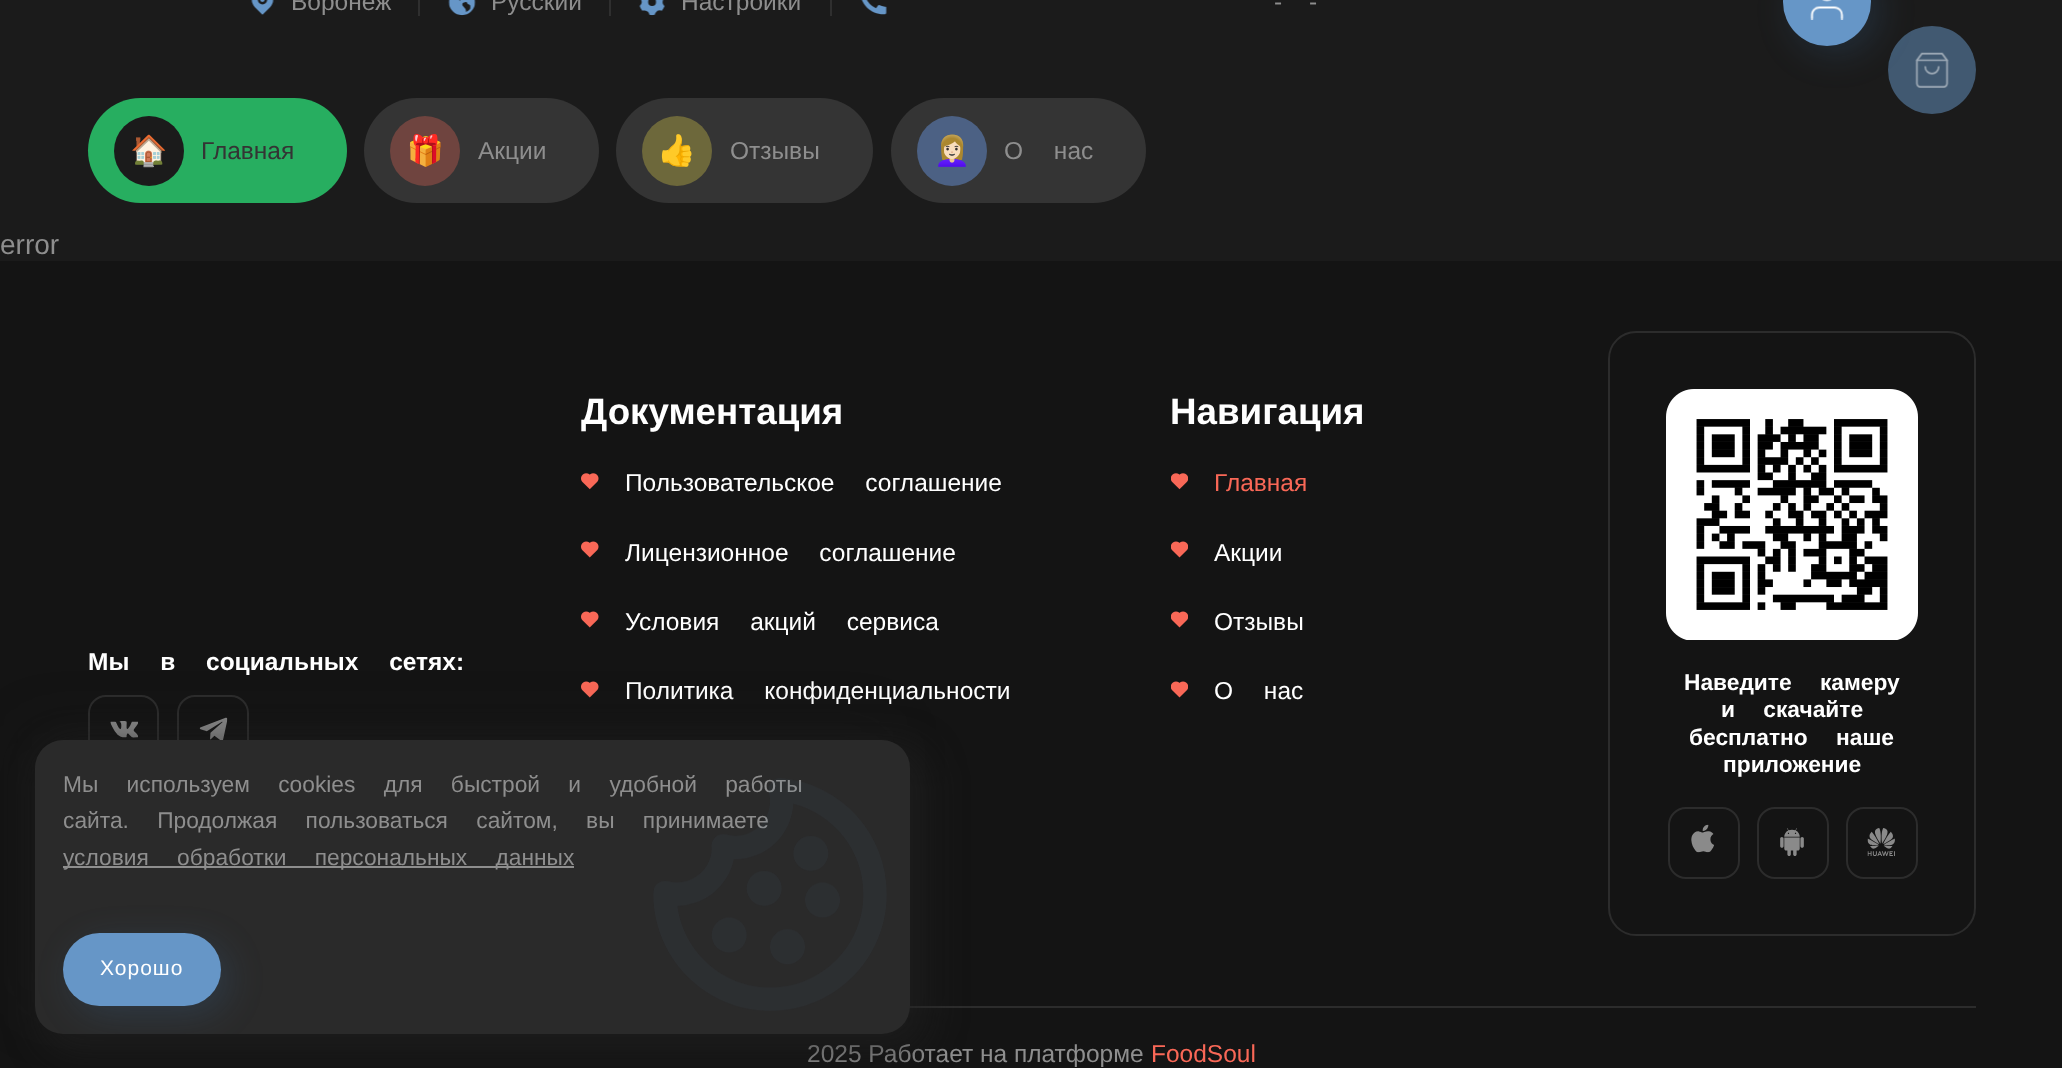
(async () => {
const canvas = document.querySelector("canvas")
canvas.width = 2062
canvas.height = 1068
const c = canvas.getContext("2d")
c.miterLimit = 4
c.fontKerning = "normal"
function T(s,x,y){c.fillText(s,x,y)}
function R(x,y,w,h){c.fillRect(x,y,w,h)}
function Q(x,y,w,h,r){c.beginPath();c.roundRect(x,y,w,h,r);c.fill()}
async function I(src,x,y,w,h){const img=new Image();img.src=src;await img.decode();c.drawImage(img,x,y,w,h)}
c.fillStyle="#1b1b1b"
R(0,0,2062,1068)
c.fillStyle="#2f2f2f"
R(418,0,2,16)
await I("1.png",251,0,23,15)
c.font="24.5px Liberation Sans"
c.fillStyle="#8e8e8e"
T("Воронеж",291,10)
c.fillStyle="#2f2f2f"
R(609,0,2,16)
await I("2.png",448,0,28,16)
c.fillStyle="#8e8e8e"
T("Русский",491,10)
c.fillStyle="#2f2f2f"
R(830,0,2,16)
await I("3.png",639,0,26,16)
c.fillStyle="#8e8e8e"
T("Настройки",681,10)
await I("4.png",861,0,26,15)
c.wordSpacing="116px"
T("-",1274,10)
T("-",1309,10)
c.fillStyle="#415971"
c.beginPath()
c.arc(1932,70,44,0,7)
c.fill()
await I("6.png",1915,52,34,36)
c.fillStyle="#4178b033"
c.filter="blur(17.5px)"
c.beginPath()
c.roundRect(1792,-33,88,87,43.5)
c.fill()
c.filter="none"
c.fillStyle="#6696c7"
c.beginPath()
c.arc(1827,2,44,0,7)
c.fill()
await I("5.png",1810,0,34,20)
c.fillStyle="#27ae60"
Q(88,98,259,105,52.5)
c.fillStyle="#1b1b1b"
c.beginPath()
c.arc(149,151,35,0,7)
c.fill()
await I("7.png",132,134,34,34)
c.wordSpacing="0px"
c.fillStyle="#343434"
T("Главная",201,159)
Q(364,98,235,105,52.5)
c.fillStyle="#6f443f"
c.beginPath()
c.arc(425,151,35,0,7)
c.fill()
await I("8.png",409,134,32,33)
c.fillStyle="#8e8e8e"
T("Акции",478,159)
c.fillStyle="#343434"
Q(616,98,257,105,52.5)
c.fillStyle="#6d683b"
c.beginPath()
c.arc(677,151,35,0,7)
c.fill()
await I("9.png",661,134,31,33)
c.fillStyle="#8e8e8e"
T("Отзывы",730,159)
c.fillStyle="#343434"
Q(891,98,255,105,52.5)
c.fillStyle="#4c6184"
c.beginPath()
c.arc(952,151,35,0,7)
c.fill()
await I("10.png",938,134,28,33)
c.wordSpacing="24px"
c.fillStyle="#8e8e8e"
T("О нас",1004,159)
c.wordSpacing="0px"
c.font="28px Liberation Sans"
T("error",0,254)
c.fillStyle="#141414"
R(0,261,2062,807)
c.wordSpacing="24px"
c.font="bold 24.5px Liberation Sans"
c.fillStyle="#fff"
T("Мы в социальных сетях:",88,670)
c.beginPath()
c.roundRect(89,696,69,70,17)
c.strokeStyle="#2c2c2c"
c.lineWidth=2
c.stroke()
await I("11.png",110,721,28,17)
c.beginPath()
c.roundRect(178,696,70,70,17)
c.stroke()
await I("12.png",199,717,29,23)
c.wordSpacing="0px"
c.font="bold 36.75px Liberation Sans"
T("Документация",581,424)
await I("13.png",581,473,18,17)
c.wordSpacing="24px"
c.font="24.5px Liberation Sans"
T("Пользовательское соглашение",625,491)
await I("14.png",581,541,18,17)
T("Лицензионное соглашение",625,561)
await I("14.png",581,611,18,17)
T("Условия акций сервиса",625,630)
await I("14.png",581,681,18,17)
T("Политика конфиденциальности",625,699)
c.wordSpacing="0px"
c.font="bold 36.75px Liberation Sans"
T("Навигация",1170,424)
await I("15.png",1171,473,17,17)
c.font="24.5px Liberation Sans"
c.fillStyle="#f96857"
T("Главная",1214,491)
await I("16.png",1171,541,17,17)
c.fillStyle="#fff"
T("Акции",1214,561)
await I("16.png",1171,611,17,17)
T("Отзывы",1214,630)
await I("16.png",1171,681,17,17)
c.wordSpacing="24px"
T("О нас",1214,699)
c.beginPath()
c.roundRect(1609,332,366,603,27)
c.stroke()
await I("17.png",1666,389,252,251)
c.wordSpacing="22px"
c.font="bold 22.75px Liberation Sans"
T("Наведите камеру",1684,690)
T("и скачайте",1721,717)
T("бесплатно наше",1689,745)
c.wordSpacing="0px"
T("приложение",1723,772)
c.beginPath()
c.roundRect(1669,808,70,70,17)
c.stroke()
await I("18.png",1691,824,23,29)
c.beginPath()
c.roundRect(1758,808,70,70,17)
c.stroke()
await I("19.png",1780,828,24,28)
c.beginPath()
c.roundRect(1847,808,70,70,17)
c.stroke()
await I("20.png",1867,828,28,28)
c.fillStyle="#2c2c2c"
R(909,1006,1067,2)
c.font="24.5px Liberation Sans"
c.fillStyle="#8e8e8e"
T("2025 Работает на платформе",807,1062)
c.fillStyle="#f96857"
T("FoodSoul",1151,1062)
c.fillStyle="#22222226"
c.filter="blur(26px)"
c.beginPath()
c.roundRect(18,723,875,294,28)
c.fill()
c.filter="none"
c.fillStyle="#22222280"
c.filter="blur(17.5px)"
c.beginPath()
c.roundRect(39,744,892,311,37)
c.fill()
c.filter="none"
c.fillStyle="#2a2a2a"
Q(35,740,875,294,28)
c.wordSpacing="22px"
c.font="22.75px Liberation Sans"
c.fillStyle="#8e8e8e"
T("Мы используем cookies для быстрой и удобной работы",63,792)
T("сайта. Продолжая пользоваться сайтом, вы принимаете",63,828)
R(63,866,511,2)
T("условия обработки персональных данных",63,865)
c.save()
c.beginPath()
c.roundRect(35,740,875,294,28)
c.clip()
c.fillStyle="#4178b033"
c.filter="blur(17.5px)"
c.beginPath()
c.roundRect(72,942,157,73,36.5)
c.fill()
c.filter="none"
c.restore()
c.fillStyle="#6696c7"
Q(63,933,158,73,36.5)
c.letterSpacing="1px"
c.wordSpacing="0px"
c.font="21px Liberation Sans"
c.fillStyle="#fff"
T("Хорошо",100,975)
await I("21.png",653,778,234,233)
})()
